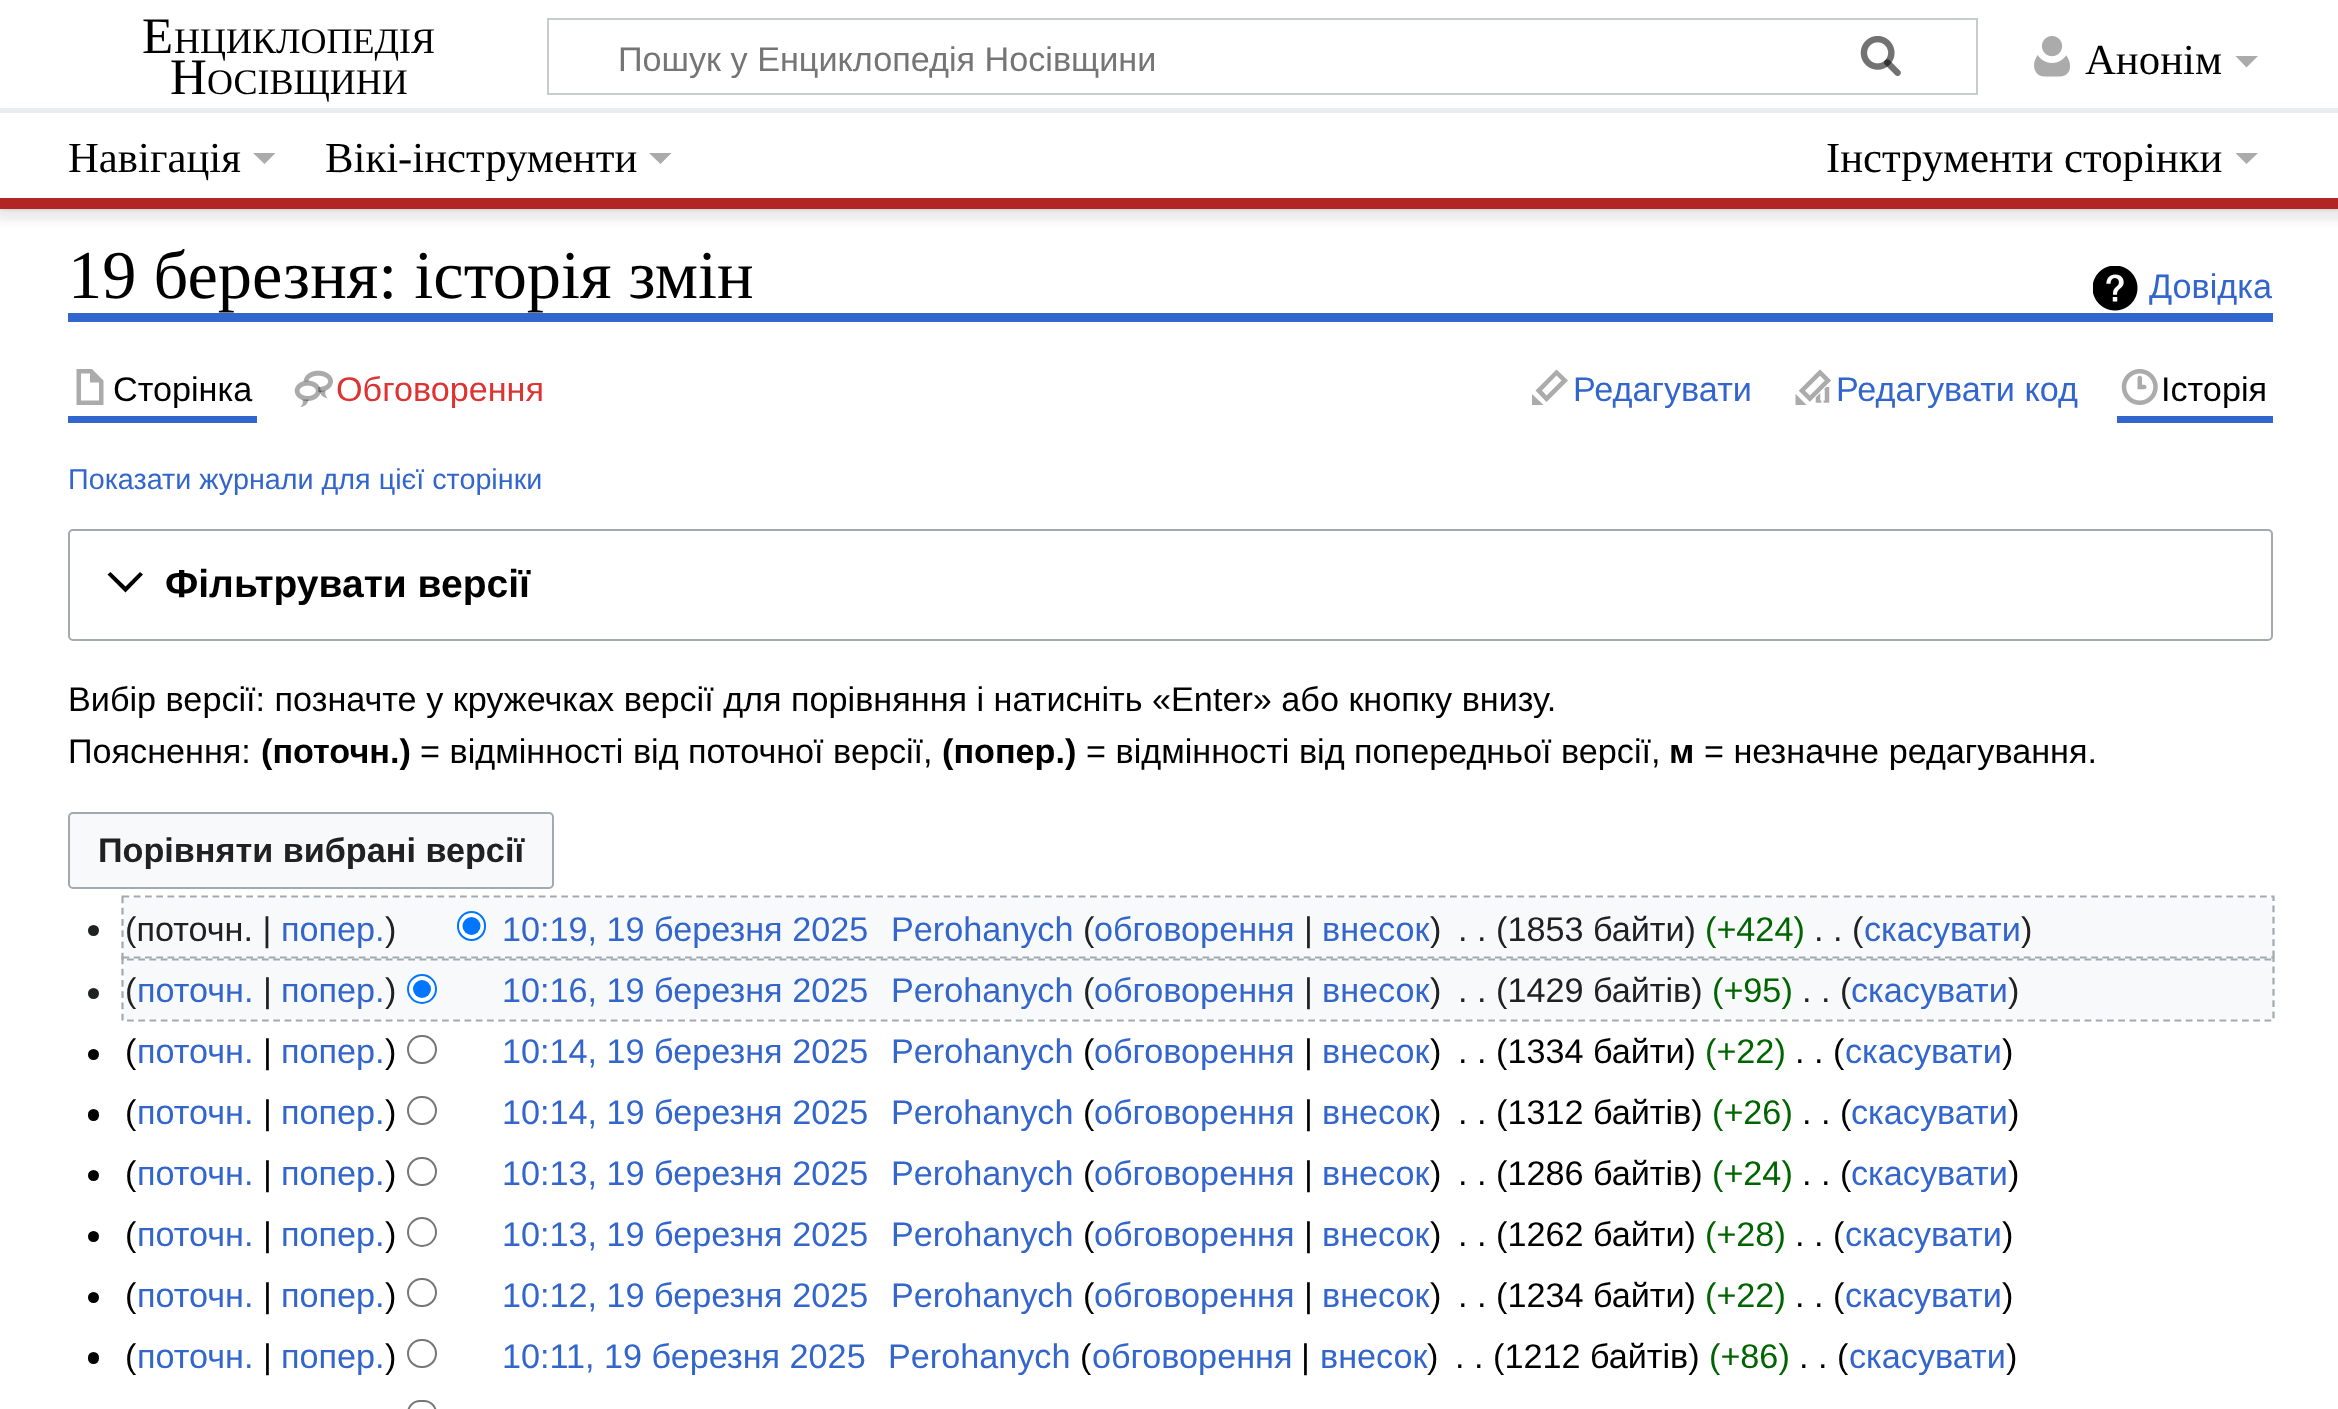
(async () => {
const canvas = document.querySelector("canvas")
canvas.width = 2338
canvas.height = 1409
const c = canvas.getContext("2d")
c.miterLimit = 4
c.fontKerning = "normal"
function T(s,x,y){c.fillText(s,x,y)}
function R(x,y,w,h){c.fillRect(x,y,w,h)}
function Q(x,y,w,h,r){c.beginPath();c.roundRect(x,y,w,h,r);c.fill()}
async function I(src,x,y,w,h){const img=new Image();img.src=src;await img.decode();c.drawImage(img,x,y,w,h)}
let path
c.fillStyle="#fff"
R(0,0,2338,1409)
c.fillStyle="#00000033"
c.filter="blur(2px)"
c.beginPath()
c.rect(0,108,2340,101)
c.fill()
c.filter="none"
c.fillStyle="#00000012"
c.filter="blur(3.5px)"
c.beginPath()
c.rect(-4,110,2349,111)
c.fill()
c.filter="none"
c.fillStyle="#fff"
R(0,104,2338,4)
c.font="51px Liberation Serif"
c.fillStyle="#000"
T("Е",142,53)
c.font="36px Liberation Serif"
T("НЦИКЛОПЕДІЯ",174,53)
c.font="51px Liberation Serif"
T("Н",170,94)
c.font="36px Liberation Serif"
T("ОСІВЩИНИ",207,94)
c.strokeStyle="#c8ccd1"
c.lineWidth=2
c.strokeRect(548,19,1429,75)
await I("1.png",1860,36,41,40)
c.font="34.2px Liberation Sans"
c.fillStyle="#757575"
T("Пошук у Енциклопедія Носівщини",618,71)
await I("2.png",1860,36,41,40)
await I("3.png",2034,36,36,41)
c.font="42.75px Liberation Serif"
c.fillStyle="#000"
T("Анонім",2085,74)
c.fillStyle="#ababab"
path = new Path2D("M2258 56l-11.5 11.5l-11-11.5z")
c.fill(path)
c.fillStyle="#fff"
R(0,113,2338,85)
c.fillStyle="#eaecf0"
R(0,108,2338,5)
c.fillStyle="#b32424"
R(0,198,2338,11)
c.fillStyle="#000"
T("Навігація",68,172)
c.fillStyle="#ababab"
path = new Path2D("M275.5 153l-11 11l-11.5-11z")
c.fill(path)
c.fillStyle="#000"
T("Вікі-інструменти",325,172)
c.fillStyle="#ababab"
path = new Path2D("M671.5 153l-11 11l-11.5-11z")
c.fill(path)
c.fillStyle="#000"
T("Інструменти сторінки",1826,172)
c.fillStyle="#ababab"
path = new Path2D("M2258 153l-11.5 11l-11-11z")
c.fill(path)
c.fillStyle="#36c"
R(68,313,2205,9)
c.font="68.4px Liberation Serif"
c.fillStyle="#000"
T("19 березня: історія змін",68,298)
await I("4.png",2093,266,45,45)
c.font="34.2px Liberation Sans"
c.fillStyle="#36c"
T("Довідка",2149,298)
R(68,416,189,7)
c.fillStyle="#ababab"
path = new Path2D("M76.5 369v36h27v-24.5l-11.5-11.5zm4.5 4.5h9v9h9v18h-18z")
c.fill(path)
c.fillStyle="#000"
T("Сторінка",113,401)
await I("5.png",294,370,39,38)
c.fillStyle="#d33"
T("Обговорення",336,401)
c.fillStyle="#ababab"
path = new Path2D("M1556.5 369.5l-21 21l11 11.5l21.5-21.5zm0 6l5 5l-15 15l-4.5-5zm-13 29.5h-11.5v-11z")
c.fill(path)
c.fillStyle="#36c"
T("Редагувати",1573,401)
await I("6.png",1795,369,36,36)
T("Редагувати код",1836,401)
R(2117,416,156,7)
await I("7.png",2121,369,37,36)
c.fillStyle="#000"
T("Історія",2161,401)
c.font="28.75px Liberation Sans"
c.fillStyle="#36c"
T("Показати журнали для цієї сторінки",68,489)
c.beginPath()
c.roundRect(69,530,2203,110,4)
c.strokeStyle="#a2a9b1"
c.stroke()
c.fillStyle="#000"
path = new Path2D("M140 572l-14.5 14.5l-15-14.5l-3 2.5l18 18l17.5-18z")
c.fill(path)
c.font="bold 39px Liberation Sans"
T("Фільтрувати версії",165,597)
c.font="34.2px Liberation Sans"
T("Вибір версії: позначте у кружечках версії для порівняння і натисніть «Enter» або кнопку внизу.",68,711)
T("Пояснення:",68,763)
c.font="bold 34.2px Liberation Sans"
T("(поточн.)",261,763)
c.font="34.2px Liberation Sans"
T("= відмінності від поточної версії,",420,763)
c.font="bold 34.2px Liberation Sans"
T("(попер.)",942,763)
c.font="34.2px Liberation Sans"
T("= відмінності від попередньої версії,",1086,763)
c.font="bold 34.2px Liberation Sans"
T("м",1669,763)
c.font="34.2px Liberation Sans"
T("= незначне редагування.",1704,763)
c.fillStyle="#f8f9fa"
c.beginPath()
c.roundRect(69,813,484,75,4)
c.fill()
c.stroke()
c.font="bold 34.2px Liberation Sans"
c.fillStyle="#202122"
T("Порівняти вибрані версії",98,862)
c.fillStyle="#f8f9fa"
R(124,898,2149,121)
c.font="34.2px Liberation Sans"
c.fillStyle="#202122"
T("(поточн. |",125,941)
c.fillStyle="#36c"
T("попер.",281,941)
c.fillStyle="#202122"
T(")",385,941)
c.fillStyle="#fff"
c.beginPath()
c.roundRect(458,912,27,28,13.5)
c.fill()
c.strokeStyle="#0075ff"
c.stroke()
c.fillStyle="#0075ff"
c.beginPath()
c.arc(471.5,926,9,0,7)
c.fill()
c.fillStyle="#36c"
T("10:19, 19 березня 2025",502,941)
T("Perohanych",891,941)
c.fillStyle="#202122"
T("(",1083,941)
c.fillStyle="#36c"
T("обговорення",1094,941)
c.fillStyle="#202122"
T("|",1304,941)
c.fillStyle="#36c"
T("внесок",1322,941)
c.fillStyle="#202122"
T(")",1430,941)
T(". . (1853 байти)",1458,941)
c.fillStyle="#006400"
T("(+424)",1705,941)
c.fillStyle="#202122"
T(". . (",1814,941)
c.fillStyle="#36c"
T("скасувати",1864,941)
c.fillStyle="#202122"
T(")",2021,941)
path = new Path2D("M122.5 896.5h2151v63h-2151z")
c.strokeStyle="#a2a9b1"
c.lineWidth=2.2
c.setLineDash([6.75,4.5])
c.stroke(path)
c.beginPath()
c.arc(93.5,930.5,5.5,0,7)
c.fill()
T("(",125,1002)
c.fillStyle="#36c"
T("поточн.",137,1002)
c.fillStyle="#202122"
T("|",263,1002)
c.fillStyle="#36c"
T("попер.",281,1002)
c.fillStyle="#202122"
T(")",385,1002)
c.fillStyle="#fff"
c.beginPath()
c.arc(422,989,14,0,7)
c.fill()
c.strokeStyle="#0075ff"
c.lineWidth=2
c.setLineDash([])
c.stroke()
c.fillStyle="#0075ff"
c.beginPath()
c.arc(422,989,9,0,7)
c.fill()
c.fillStyle="#36c"
T("10:16, 19 березня 2025",502,1002)
T("Perohanych",891,1002)
c.fillStyle="#202122"
T("(",1083,1002)
c.fillStyle="#36c"
T("обговорення",1094,1002)
c.fillStyle="#202122"
T("|",1304,1002)
c.fillStyle="#36c"
T("внесок",1322,1002)
c.fillStyle="#202122"
T(")",1430,1002)
T(". . (1429 байтів)",1458,1002)
c.fillStyle="#006400"
T("(+95)",1712,1002)
c.fillStyle="#202122"
T(". . (",1802,1002)
c.fillStyle="#36c"
T("скасувати",1851,1002)
c.fillStyle="#202122"
T(")",2008,1002)
path = new Path2D("M122.5 957.5h2151v63h-2151z")
c.strokeStyle="#a2a9b1"
c.lineWidth=2.2
c.setLineDash([6.75,4.5])
c.stroke(path)
c.beginPath()
c.arc(93.5,993.5,5.5,0,7)
c.fill()
c.fillStyle="#000"
c.beginPath()
c.arc(93.5,1054.5,5.5,0,7)
c.fill()
T("(",125,1063)
c.fillStyle="#36c"
T("поточн.",137,1063)
c.fillStyle="#000"
T("|",263,1063)
c.fillStyle="#36c"
T("попер.",281,1063)
c.fillStyle="#000"
T(")",385,1063)
c.beginPath()
c.roundRect(408,1036,28,27,13.5)
c.strokeStyle="#767676"
c.lineWidth=2
c.setLineDash([])
c.stroke()
c.fillStyle="#36c"
T("10:14, 19 березня 2025",502,1063)
T("Perohanych",891,1063)
c.fillStyle="#000"
T("(",1083,1063)
c.fillStyle="#36c"
T("обговорення",1094,1063)
c.fillStyle="#000"
T("|",1304,1063)
c.fillStyle="#36c"
T("внесок",1322,1063)
c.fillStyle="#000"
T(")",1430,1063)
T(". . (1334 байти)",1458,1063)
c.fillStyle="#006400"
T("(+22)",1705,1063)
c.fillStyle="#000"
T(". . (",1795,1063)
c.fillStyle="#36c"
T("скасувати",1845,1063)
c.fillStyle="#000"
T(")",2002,1063)
Q(88,1109,11,12,5.5)
T("(",125,1124)
c.fillStyle="#36c"
T("поточн.",137,1124)
c.fillStyle="#000"
T("|",263,1124)
c.fillStyle="#36c"
T("попер.",281,1124)
c.fillStyle="#000"
T(")",385,1124)
c.beginPath()
c.roundRect(408,1097,28,27,13.5)
c.stroke()
c.fillStyle="#36c"
T("10:14, 19 березня 2025",502,1124)
T("Perohanych",891,1124)
c.fillStyle="#000"
T("(",1083,1124)
c.fillStyle="#36c"
T("обговорення",1094,1124)
c.fillStyle="#000"
T("|",1304,1124)
c.fillStyle="#36c"
T("внесок",1322,1124)
c.fillStyle="#000"
T(")",1430,1124)
T(". . (1312 байтів)",1458,1124)
c.fillStyle="#006400"
T("(+26)",1712,1124)
c.fillStyle="#000"
T(". . (",1802,1124)
c.fillStyle="#36c"
T("скасувати",1851,1124)
c.fillStyle="#000"
T(")",2008,1124)
c.beginPath()
c.arc(93.5,1175.5,5.5,0,7)
c.fill()
T("(",125,1185)
c.fillStyle="#36c"
T("поточн.",137,1185)
c.fillStyle="#000"
T("|",263,1185)
c.fillStyle="#36c"
T("попер.",281,1185)
c.fillStyle="#000"
T(")",385,1185)
c.beginPath()
c.roundRect(408,1158,28,27,13.5)
c.stroke()
c.fillStyle="#36c"
T("10:13, 19 березня 2025",502,1185)
T("Perohanych",891,1185)
c.fillStyle="#000"
T("(",1083,1185)
c.fillStyle="#36c"
T("обговорення",1094,1185)
c.fillStyle="#000"
T("|",1304,1185)
c.fillStyle="#36c"
T("внесок",1322,1185)
c.fillStyle="#000"
T(")",1430,1185)
T(". . (1286 байтів)",1458,1185)
c.fillStyle="#006400"
T("(+24)",1712,1185)
c.fillStyle="#000"
T(". . (",1802,1185)
c.fillStyle="#36c"
T("скасувати",1851,1185)
c.fillStyle="#000"
T(")",2008,1185)
c.beginPath()
c.arc(93.5,1236.5,5.5,0,7)
c.fill()
T("(",125,1246)
c.fillStyle="#36c"
T("поточн.",137,1246)
c.fillStyle="#000"
T("|",263,1246)
c.fillStyle="#36c"
T("попер.",281,1246)
c.fillStyle="#000"
T(")",385,1246)
c.beginPath()
c.arc(422,1232,14,0,7)
c.stroke()
c.fillStyle="#36c"
T("10:13, 19 березня 2025",502,1246)
T("Perohanych",891,1246)
c.fillStyle="#000"
T("(",1083,1246)
c.fillStyle="#36c"
T("обговорення",1094,1246)
c.fillStyle="#000"
T("|",1304,1246)
c.fillStyle="#36c"
T("внесок",1322,1246)
c.fillStyle="#000"
T(")",1430,1246)
T(". . (1262 байти)",1458,1246)
c.fillStyle="#006400"
T("(+28)",1705,1246)
c.fillStyle="#000"
T(". . (",1795,1246)
c.fillStyle="#36c"
T("скасувати",1845,1246)
c.fillStyle="#000"
T(")",2002,1246)
c.beginPath()
c.arc(93.5,1297.5,5.5,0,7)
c.fill()
T("(",125,1307)
c.fillStyle="#36c"
T("поточн.",137,1307)
c.fillStyle="#000"
T("|",263,1307)
c.fillStyle="#36c"
T("попер.",281,1307)
c.fillStyle="#000"
T(")",385,1307)
c.beginPath()
c.roundRect(408,1279,28,27,13.5)
c.stroke()
c.fillStyle="#36c"
T("10:12, 19 березня 2025",502,1307)
T("Perohanych",891,1307)
c.fillStyle="#000"
T("(",1083,1307)
c.fillStyle="#36c"
T("обговорення",1094,1307)
c.fillStyle="#000"
T("|",1304,1307)
c.fillStyle="#36c"
T("внесок",1322,1307)
c.fillStyle="#000"
T(")",1430,1307)
T(". . (1234 байти)",1458,1307)
c.fillStyle="#006400"
T("(+22)",1705,1307)
c.fillStyle="#000"
T(". . (",1795,1307)
c.fillStyle="#36c"
T("скасувати",1845,1307)
c.fillStyle="#000"
T(")",2002,1307)
Q(88,1352,11,12,5.5)
T("(",125,1368)
c.fillStyle="#36c"
T("поточн.",137,1368)
c.fillStyle="#000"
T("|",263,1368)
c.fillStyle="#36c"
T("попер.",281,1368)
c.fillStyle="#000"
T(")",385,1368)
c.beginPath()
c.roundRect(408,1340,28,27,13.5)
c.stroke()
c.fillStyle="#36c"
T("10:11, 19 березня 2025",502,1368)
T("Perohanych",888,1368)
c.fillStyle="#000"
T("(",1080,1368)
c.fillStyle="#36c"
T("обговорення",1092,1368)
c.fillStyle="#000"
T("|",1301,1368)
c.fillStyle="#36c"
T("внесок",1320,1368)
c.fillStyle="#000"
T(")",1427,1368)
T(". . (1212 байтів)",1455,1368)
c.fillStyle="#006400"
T("(+86)",1709,1368)
c.fillStyle="#000"
T(". . (",1799,1368)
c.fillStyle="#36c"
T("скасувати",1849,1368)
c.fillStyle="#000"
T(")",2006,1368)
c.beginPath()
c.roundRect(408,1401,28,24,13.5)
c.stroke()
})()
